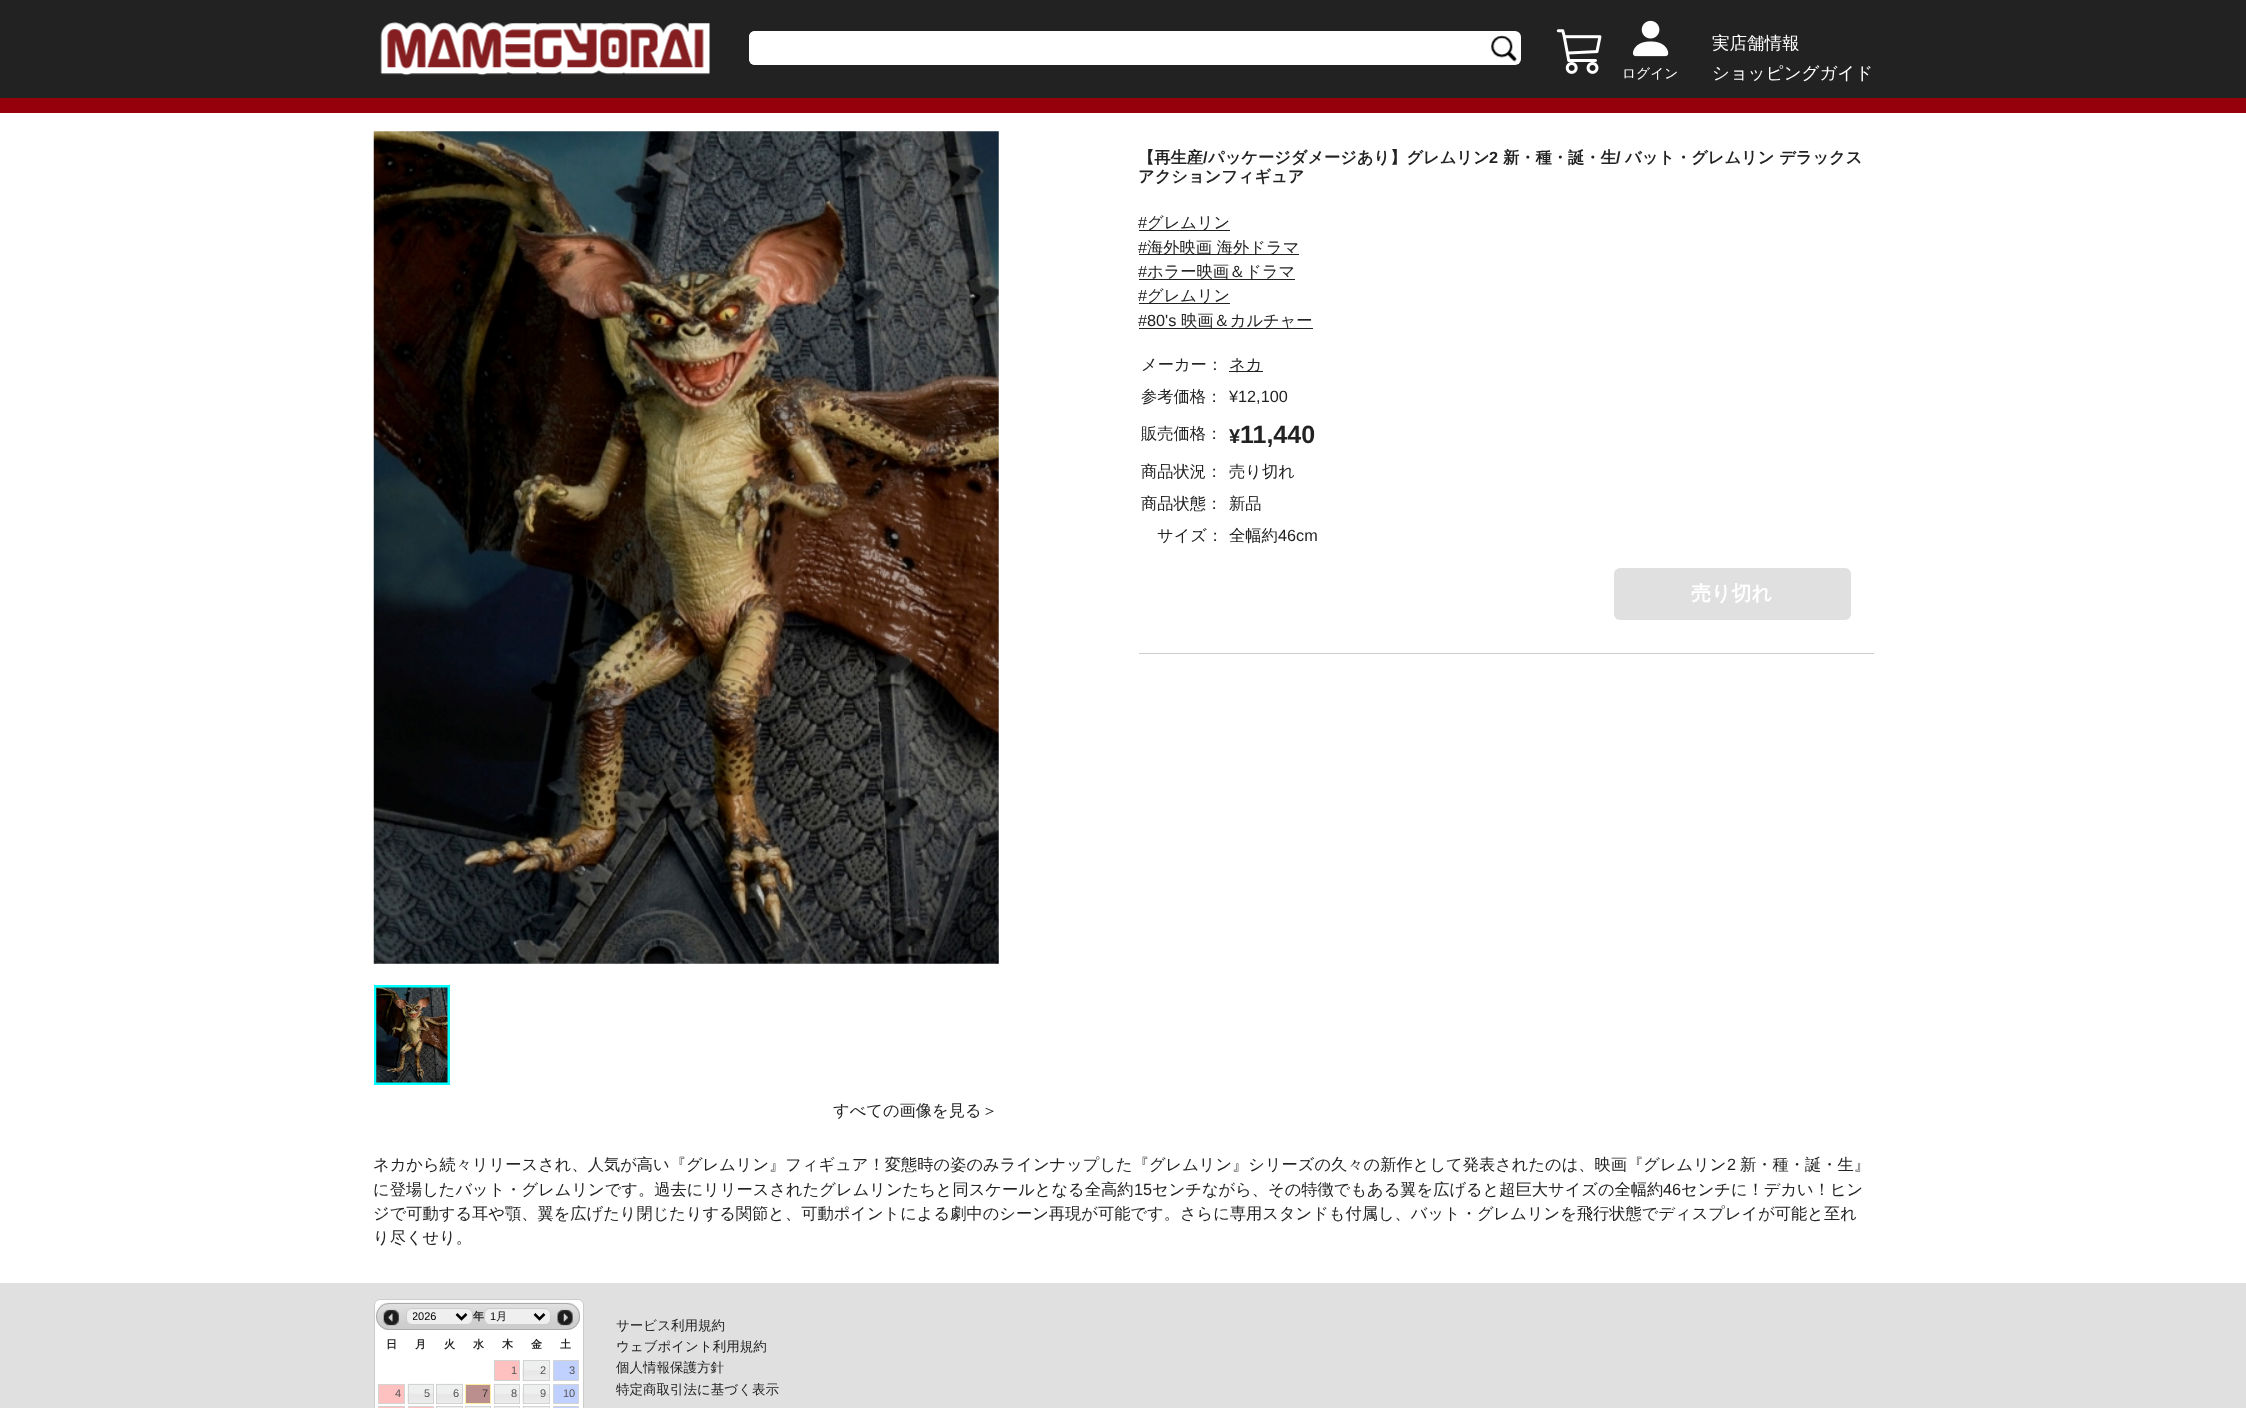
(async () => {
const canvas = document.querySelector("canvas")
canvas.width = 2246
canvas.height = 1408
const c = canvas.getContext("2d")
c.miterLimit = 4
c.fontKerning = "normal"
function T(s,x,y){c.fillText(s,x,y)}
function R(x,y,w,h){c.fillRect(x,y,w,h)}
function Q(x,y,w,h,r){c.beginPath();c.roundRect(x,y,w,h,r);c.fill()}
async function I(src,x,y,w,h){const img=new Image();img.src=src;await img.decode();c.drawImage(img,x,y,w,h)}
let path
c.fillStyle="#fff"
R(0,0,2246,1408)
c.fillStyle="#222"
R(0,0,2246,98)
c.fillStyle="#96000b"
R(0,98,2246,15)
await I("1.png",380,22,330,54)
c.fillStyle="#fff"
Q(749,31,772,34,6)
Q(749,31,734,34,6)
await I("2.png",1491,35,26,27)
await I("3.png",1556,29,46,45)
await I("4.png",1632,20,37,37)
c.font="500 13.75px WenQuanYi Zen Hei"
T("ログイン",1622,78)
c.font="500 17.5px WenQuanYi Zen Hei"
T("実店舗情報",1712,49)
T("ショッピングガイド",1712,79)
c.font="bold 16.25px WenQuanYi Zen Hei"
c.fillStyle="#222"
T("【再生産",1138,163)
c.font="bold 16.25px Liberation Sans"
T("/",1203,163)
c.font="bold 16.25px WenQuanYi Zen Hei"
T("パッケージダメージあり】グレムリン",1208,163)
c.font="bold 16.25px Liberation Sans"
T("2",1489,163)
c.font="bold 16.25px WenQuanYi Zen Hei"
T("新・種・誕・生",1503,163)
c.font="bold 16.25px Liberation Sans"
T("/",1616,163)
c.font="bold 16.25px WenQuanYi Zen Hei"
T("バット・グレムリン デラックス",1625,163)
T("アクションフィギュア",1138,182)
c.font="16.25px Liberation Sans"
T("#",1138,228)
R(1139,230,91,1)
c.font="500 16.25px WenQuanYi Zen Hei"
T("グレムリン",1147,228)
c.font="16.25px Liberation Sans"
T("#",1138,253)
R(1139,254,160,1)
c.font="500 16.25px WenQuanYi Zen Hei"
T("海外映画 海外ドラマ",1147,253)
c.font="16.25px Liberation Sans"
T("#",1138,277)
R(1139,279,156,1)
c.font="500 16.25px WenQuanYi Zen Hei"
T("ホラー映画＆ドラマ",1147,277)
c.font="16.25px Liberation Sans"
T("#",1138,301)
R(1139,303,91,1)
c.font="500 16.25px WenQuanYi Zen Hei"
T("グレムリン",1147,301)
c.font="16.25px Liberation Sans"
T("#80's",1138,326)
R(1139,328,174,1)
c.font="500 16.25px WenQuanYi Zen Hei"
T("映画＆カルチャー",1181,326)
T("メーカー：",1141,370)
R(1229,371,34,1)
T("ネカ",1229,370)
T("参考価格：",1141,402)
c.font="16.25px Liberation Sans"
T("¥12,100",1229,402)
c.font="500 16.25px WenQuanYi Zen Hei"
T("販売価格：",1141,439)
c.font="bold 20px Liberation Sans"
T("¥",1229,443)
c.font="bold 25px Liberation Sans"
T("11,440",1240,443)
c.font="500 16.25px WenQuanYi Zen Hei"
T("商品状況：",1141,477)
T("売り切れ",1229,477)
T("商品状態：",1141,509)
T("新品",1229,509)
T("サイズ：",1157,541)
T("全幅約",1229,541)
c.font="16.25px Liberation Sans"
T("46cm",1278,541)
c.fillStyle="#e0e0e0"
Q(1614,568,237,52,6)
c.font="bold 20px WenQuanYi Zen Hei"
c.fillStyle="#fff"
T("売り切れ",1691,600)
c.fillStyle="#ccc"
R(1139,653,735,1)
await I("5.png",373,131,626,833)
c.strokeStyle="#0ff"
c.lineWidth=3
c.strokeRect(375.5,986.5,73,97)
await I("6.png",376,987,72,96)
c.font="500 16.25px WenQuanYi Zen Hei"
c.fillStyle="#222"
T("すべての画像を見る＞",833,1116)
T("ネカから続々リリースされ、人気が高い『グレムリン』フィギュア！変態時の姿のみラインナップした『グレムリン』シリーズの久々の新作として発表されたのは、映画『グレムリン",373,1170)
c.font="16.25px Liberation Sans"
T("2",1727,1170)
c.font="500 16.25px WenQuanYi Zen Hei"
T("新・種・誕・生』",1740,1170)
T("に登場したバット・グレムリンです。過去にリリースされたグレムリンたちと同スケールとなる全高約",373,1195)
c.font="16.25px Liberation Sans"
T("15",1134,1195)
c.font="500 16.25px WenQuanYi Zen Hei"
T("センチながら、その特徴でもある翼を広げると超巨大サイズの全幅約",1152,1195)
c.font="16.25px Liberation Sans"
T("46",1663,1195)
c.font="500 16.25px WenQuanYi Zen Hei"
T("センチに！デカい！ヒン",1681,1195)
T("ジで可動する耳や顎、翼を広げたり閉じたりする関節と、可動ポイントによる劇中のシーン再現が可能です。さらに専用スタンドも付属し、バット・グレムリンを飛行状態でディスプレイが可能と至れ",373,1219)
T("り尽くせり。",373,1243)
c.fillStyle="#e0e0e0"
R(0,1283,2246,125)
c.fillStyle="#fff"
c.beginPath()
c.roundRect(374.5,1299.5,209,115,5.5)
c.fill()
c.strokeStyle="#ccc"
c.lineWidth=1
c.stroke()
await I("7.png",376,1302,204,28)
c.beginPath()
c.roundRect(376.5,1303.5,203,26,12.5)
c.strokeStyle="#aaa"
c.stroke()
await I("8.png",383,1309,16,17)
c.fillStyle="#efefef"
c.beginPath()
c.roundRect(406.5,1308.5,66,16,5.5)
c.fill()
c.strokeStyle="#ccc"
c.stroke()
path = new Path2D("M456.5 1314l5 5l5-5")
c.strokeStyle="#000"
c.lineWidth=2.5
c.stroke(path)
c.save()
c.beginPath()
c.rect(413,1309,38,15)
c.clip()
c.font="11px Liberation Sans"
c.fillStyle="#000"
T("2026",412,1320)
c.restore()
c.font="bold 11px WenQuanYi Zen Hei"
c.fillStyle="#222"
T("年",473,1320)
c.fillStyle="#efefef"
c.beginPath()
c.roundRect(484.5,1308.5,66,16,5.5)
c.fill()
c.strokeStyle="#ccc"
c.lineWidth=1
c.stroke()
path = new Path2D("M534.5 1314l5 5l5-5")
c.strokeStyle="#000"
c.lineWidth=2.5
c.stroke(path)
c.font="11px Liberation Sans"
c.fillStyle="#000"
T("1",490,1320)
c.font="500 11px WenQuanYi Zen Hei"
T("月",496,1320)
await I("9.png",557,1309,16,17)
c.font="bold 11px WenQuanYi Zen Hei"
c.fillStyle="#222"
T("日",386,1348)
T("月",415,1348)
T("火",444,1348)
T("水",473,1348)
T("木",502,1348)
T("金",531,1348)
T("土",560,1348)
c.fillStyle="#ffc0c0"
c.beginPath()
c.rect(494.5,1360.5,25,20)
c.fill()
c.strokeStyle="#d3d3d3"
c.lineWidth=1
c.stroke()
c.font="11px Liberation Sans"
c.fillStyle="#555"
T("1",511,1374)
await I("10.png",522,1360,28,22)
c.strokeRect(523.5,1360.5,26,20)
T("2",540,1374)
c.fillStyle="#c0d0ff"
c.beginPath()
c.rect(553.5,1360.5,25,20)
c.fill()
c.stroke()
c.fillStyle="#555"
T("3",569,1374)
c.fillStyle="#ffc0c0"
c.beginPath()
c.rect(378.5,1384.5,26,19)
c.fill()
c.stroke()
c.fillStyle="#555"
T("4",395,1397)
await I("11.png",407,1383,27,21)
c.strokeRect(408.5,1384.5,25,19)
T("5",424,1397)
await I("12.png",436,1383,27,20)
c.strokeRect(436.5,1384.5,26,19)
T("6",453,1397)
c.fillStyle="#bc8f8f"
c.beginPath()
c.rect(465.5,1384.5,25,19)
c.fill()
c.strokeStyle="#fcefa1"
c.stroke()
c.fillStyle="#363636"
T("7",482,1397)
await I("13.png",493,1383,27,21)
c.strokeStyle="#d3d3d3"
c.strokeRect(494.5,1384.5,25,19)
c.fillStyle="#555"
T("8",511,1397)
await I("14.png",522,1383,28,21)
c.strokeRect(523.5,1384.5,26,19)
T("9",540,1397)
c.fillStyle="#c0d0ff"
c.beginPath()
c.rect(553.5,1384.5,25,19)
c.fill()
c.stroke()
c.fillStyle="#555"
T("10",563,1397)
c.fillStyle="#ffc0c0"
c.beginPath()
c.rect(378.5,1406.5,26,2)
c.fill()
c.stroke()
c.beginPath()
c.rect(408.5,1406.5,25,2)
c.fill()
c.stroke()
await I("15.png",437,1407,25,1)
c.strokeRect(436.5,1406.5,26,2)
await I("16.png",466,1406,26,2)
c.strokeRect(465.5,1406.5,25,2)
await I("17.png",493,1406,26,2)
c.strokeRect(494.5,1406.5,25,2)
await I("18.png",522,1406,27,2)
c.strokeRect(523.5,1406.5,26,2)
c.fillStyle="#c0d0ff"
c.beginPath()
c.rect(553.5,1406.5,25,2)
c.fill()
c.stroke()
c.font="500 13.5px WenQuanYi Zen Hei"
c.fillStyle="#222"
T("サービス利用規約",616,1330)
T("ウェブポイント利用規約",616,1351)
T("個人情報保護方針",616,1372)
T("特定商取引法に基づく表示",616,1394)
})()
